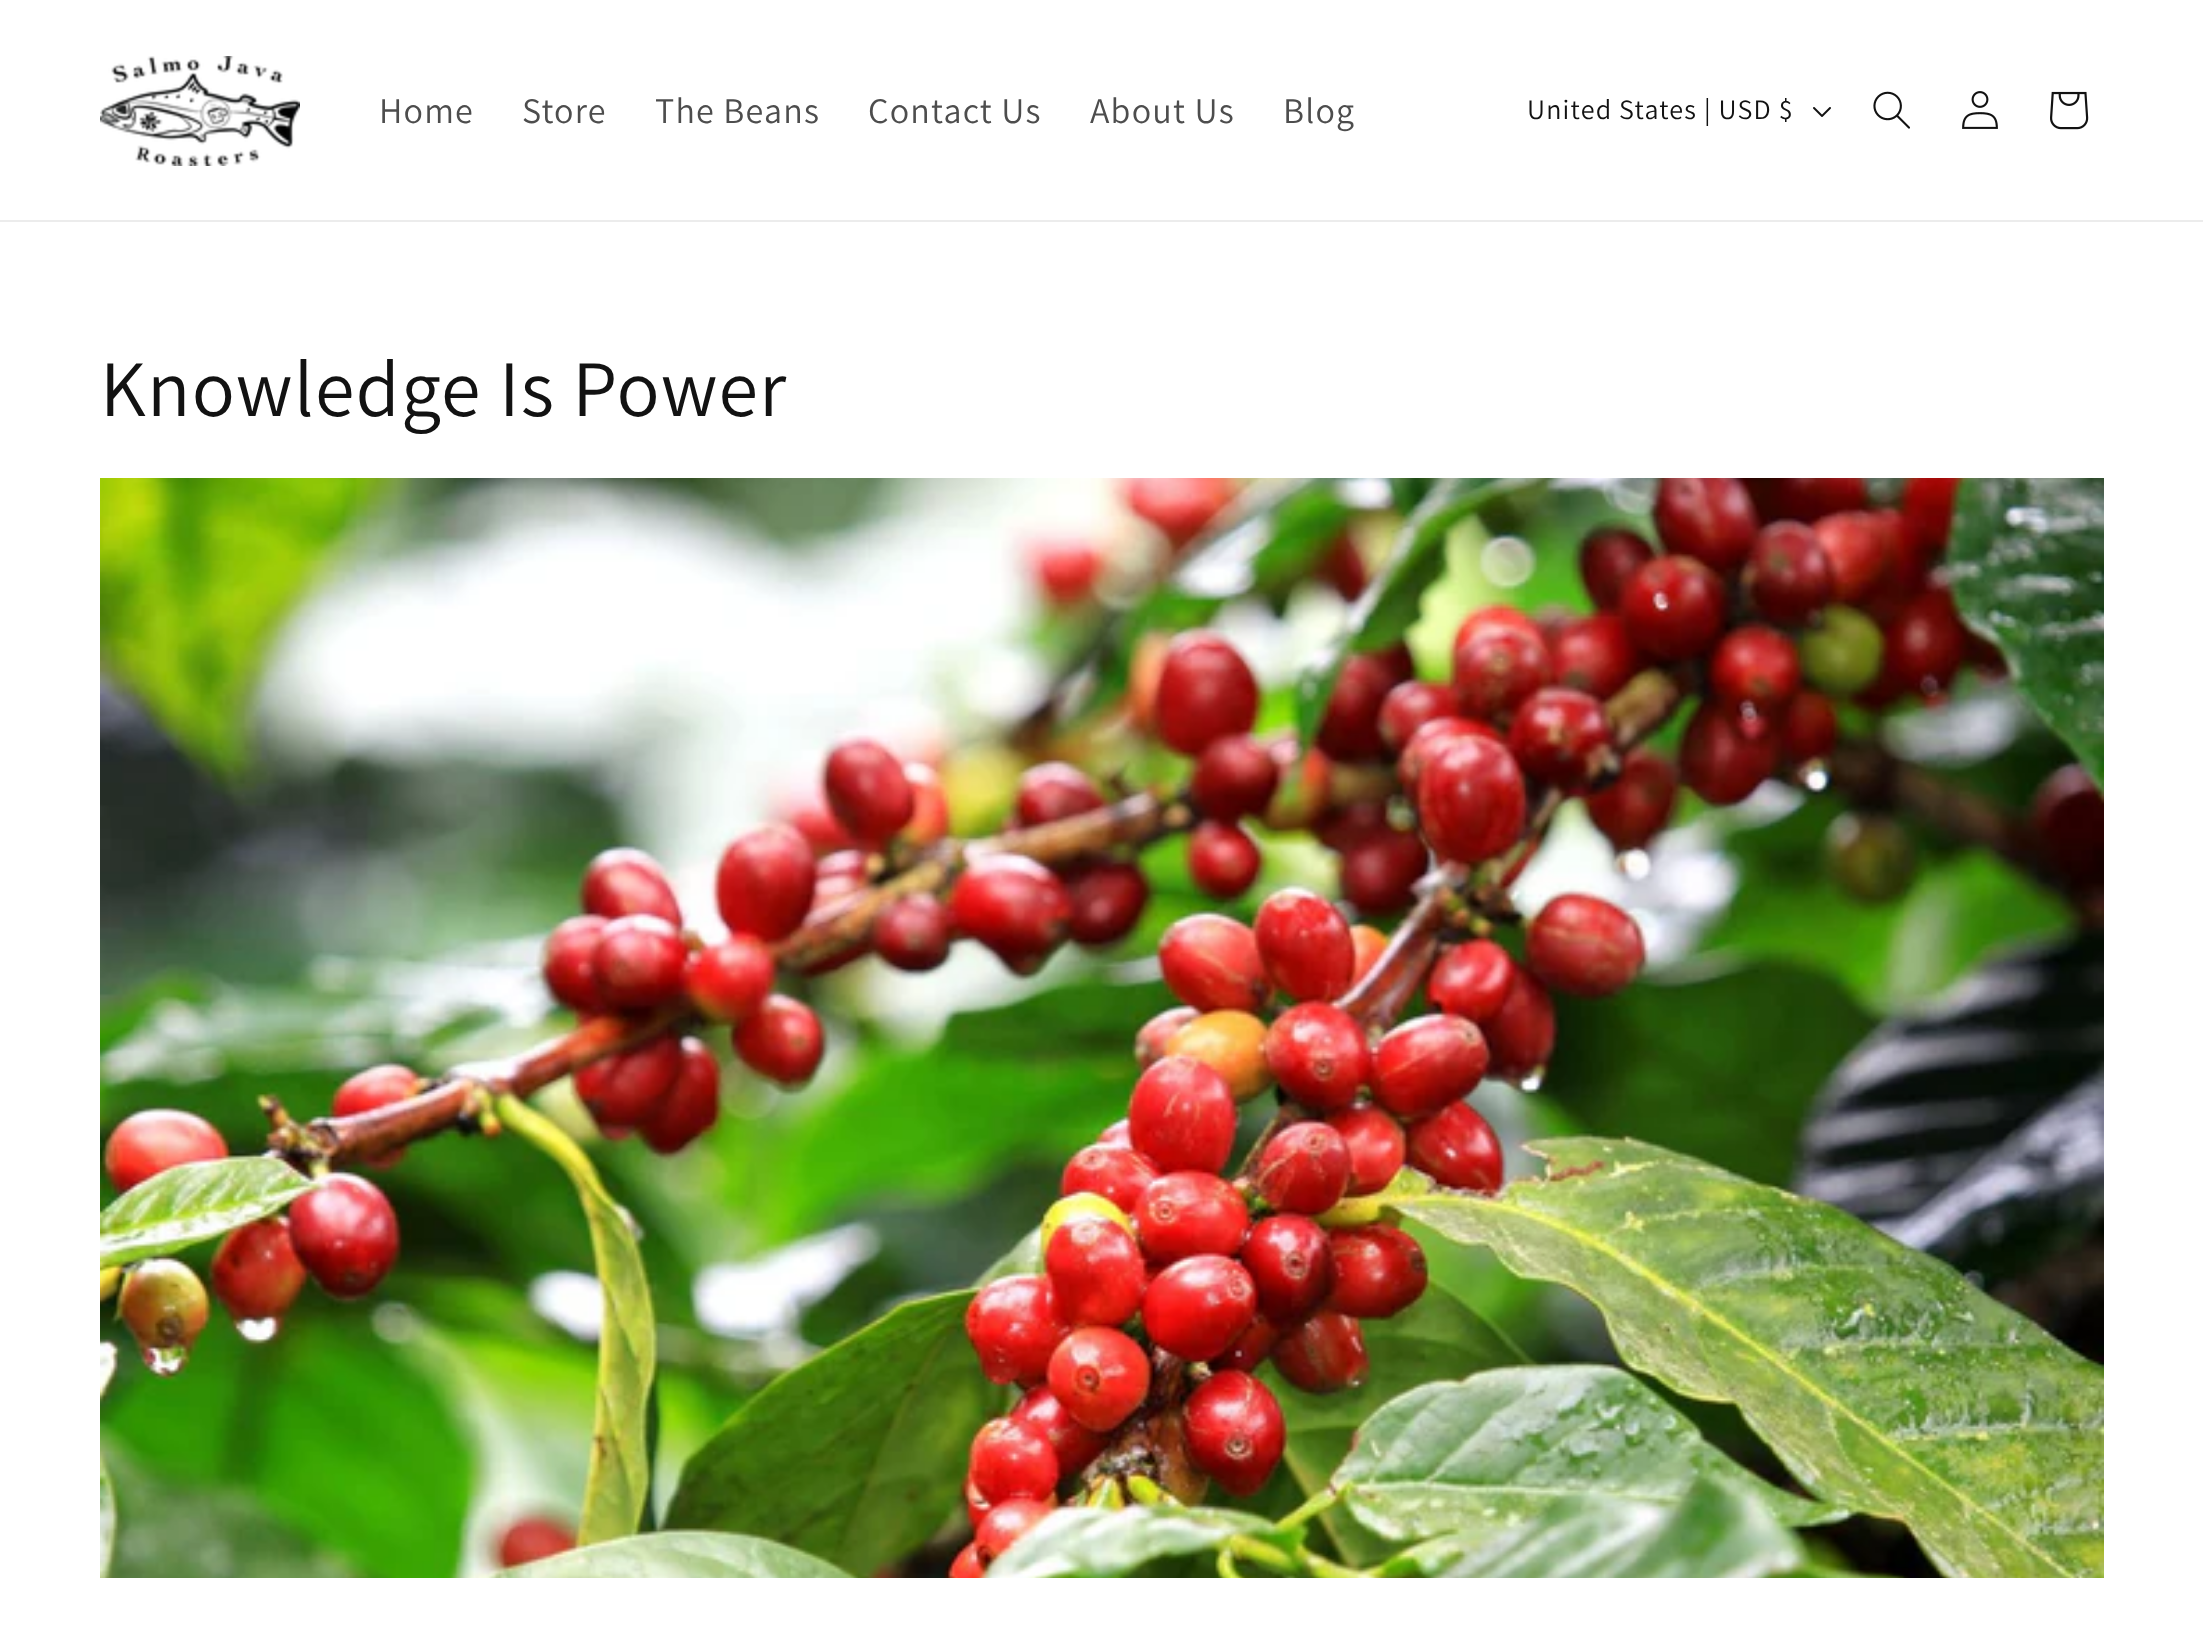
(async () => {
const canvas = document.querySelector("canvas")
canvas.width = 2203
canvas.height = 1630
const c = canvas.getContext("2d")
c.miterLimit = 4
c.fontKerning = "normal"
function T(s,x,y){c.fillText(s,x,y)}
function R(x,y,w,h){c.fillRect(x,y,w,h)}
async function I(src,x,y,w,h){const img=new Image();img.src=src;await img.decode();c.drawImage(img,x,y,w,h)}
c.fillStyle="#fff"
R(0,0,2203,1630)
c.fillStyle="#ececec"
R(0,220,2203,2)
await I("1.png",100,56,200,110)
c.letterSpacing="1.2px"
c.font="36px Assistant"
c.fillStyle="#4d4d4d"
T("Home",379,123)
T("Store",522,123)
T("The Beans",655,123)
T("Contact Us",868,123)
T("About Us",1090,123)
T("Blog",1283,123)
c.font="28px Assistant"
c.fillStyle="#121212"
T("United States | USD $",1527,119)
await I("2.png",1813,107,18,10)
await I("3.png",1873,91,37,38)
await I("4.png",1962,91,36,38)
await I("5.png",2050,91,39,39)
c.font="80px Assistant"
T("Knowledge Is Power",100,416)
await I("6.png",100,478,2004,1100)
})()
